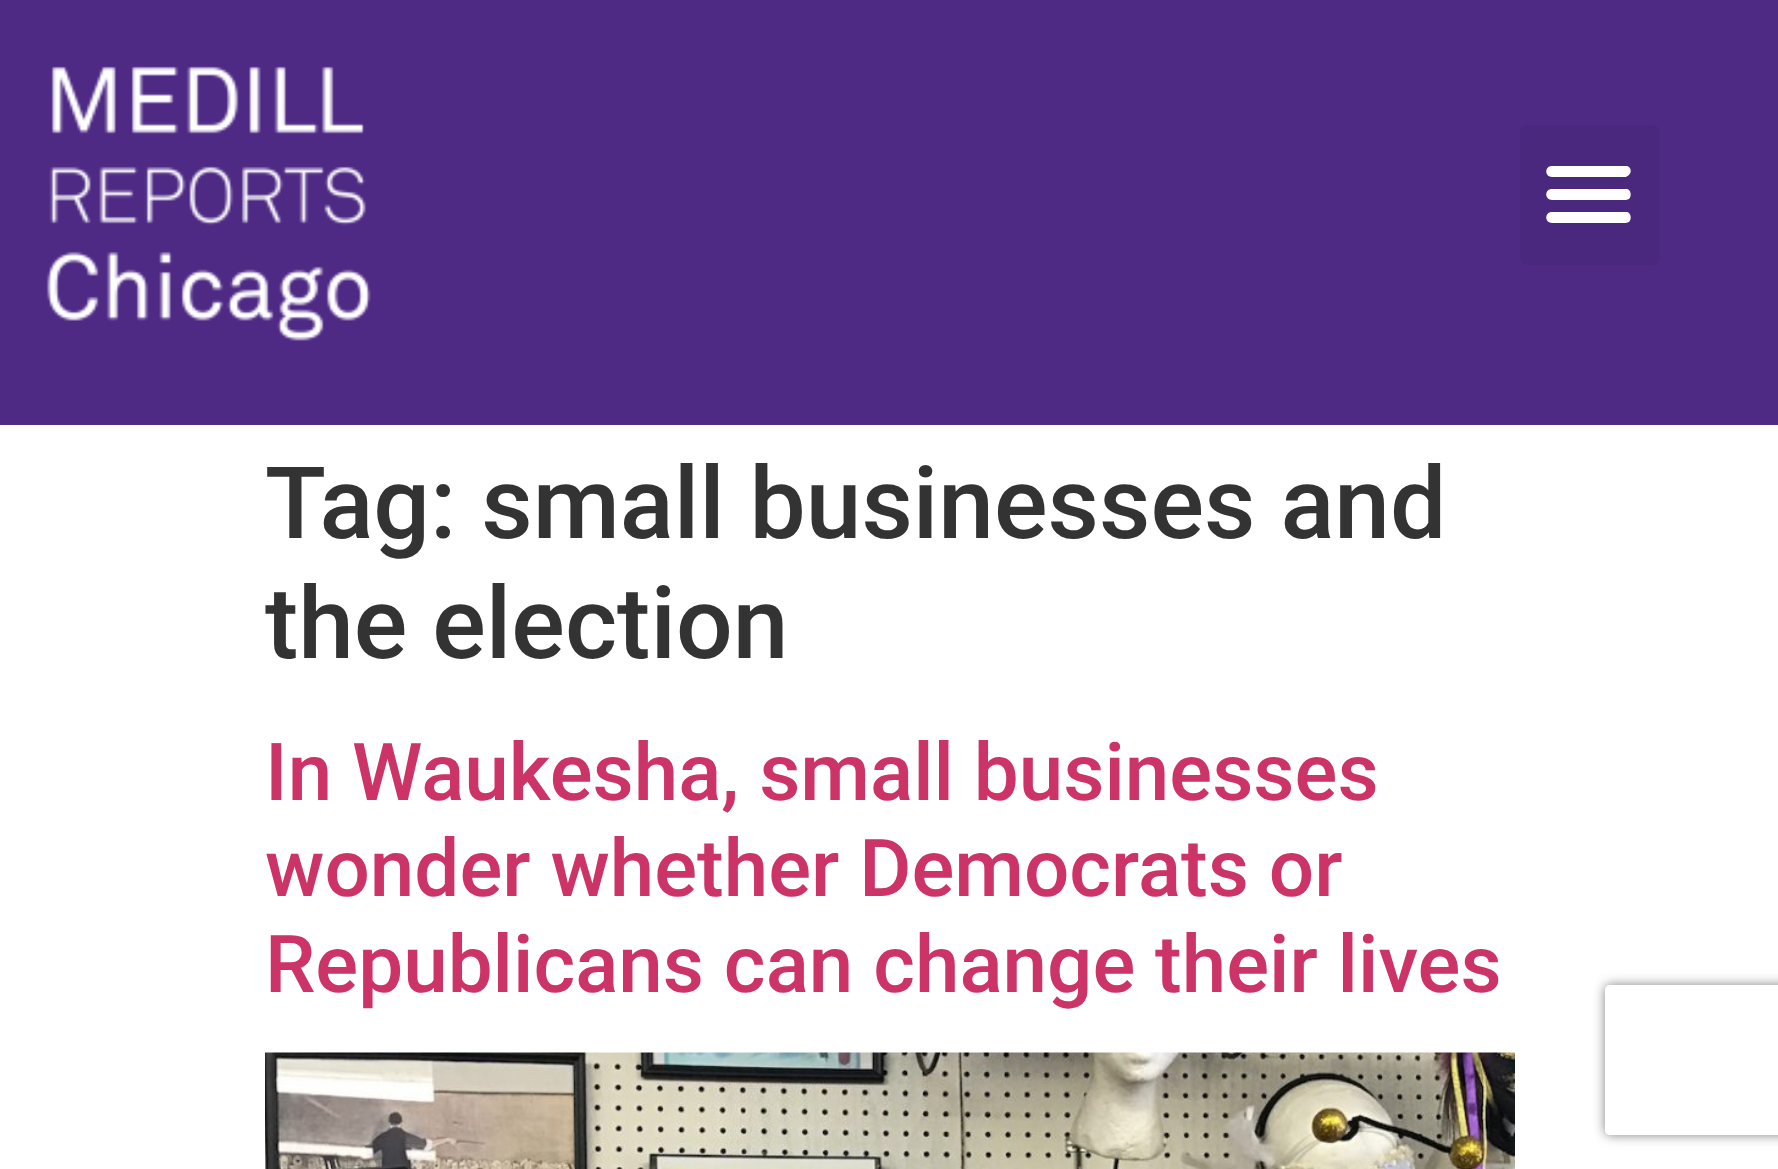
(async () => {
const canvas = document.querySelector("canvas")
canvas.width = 1778
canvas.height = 1169
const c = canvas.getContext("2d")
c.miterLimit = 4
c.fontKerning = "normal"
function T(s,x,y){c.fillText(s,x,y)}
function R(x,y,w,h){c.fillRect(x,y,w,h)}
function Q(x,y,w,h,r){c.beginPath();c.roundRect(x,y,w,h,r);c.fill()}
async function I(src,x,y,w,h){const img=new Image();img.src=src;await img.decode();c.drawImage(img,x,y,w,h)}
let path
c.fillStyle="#fff"
R(0,0,1778,1169)
c.fillStyle="#4e2a85"
R(0,0,1778,425)
await I("1.png",46,66,325,275)
c.fillStyle="#4a287e"
Q(1520,125,140,140,8)
c.fillStyle="#fff"
path = new Path2D("M1552 177h74l3-2c3-3 2-8-2-9h-76c-7 1-6 11 1 11zm0 23h74l3-1c3-3 2-9-2-10h-76c-7 1-6 11 1 11zm0 23h74l3-1c3-3 2-9-2-10h-76c-7 1-6 11 1 11z")
c.fill(path)
c.font="500 100px Roboto"
c.fillStyle="#333"
T("Tag: small businesses and",265,538)
T("the election",265,658)
c.font="500 80px Roboto"
c.fillStyle="#c36"
T("In Waukesha, small businesses",265,800)
T("wonder whether Democrats or",265,896)
T("Republicans can change their lives",265,992)
await I("2.png",265,1052,1250,117)
c.save()
path = new Path2D("M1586 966h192v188h-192zm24 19h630c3 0 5 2 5 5v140c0 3-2 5-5 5h-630c-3 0-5-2-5-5v-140c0-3 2-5 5-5z")
c.clip(path,"evenodd")
c.fillStyle="#808080"
c.filter="blur(6px)"
c.beginPath()
c.roundRect(1605,985,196,150,5)
c.fill()
c.filter="none"
c.restore()
})()
